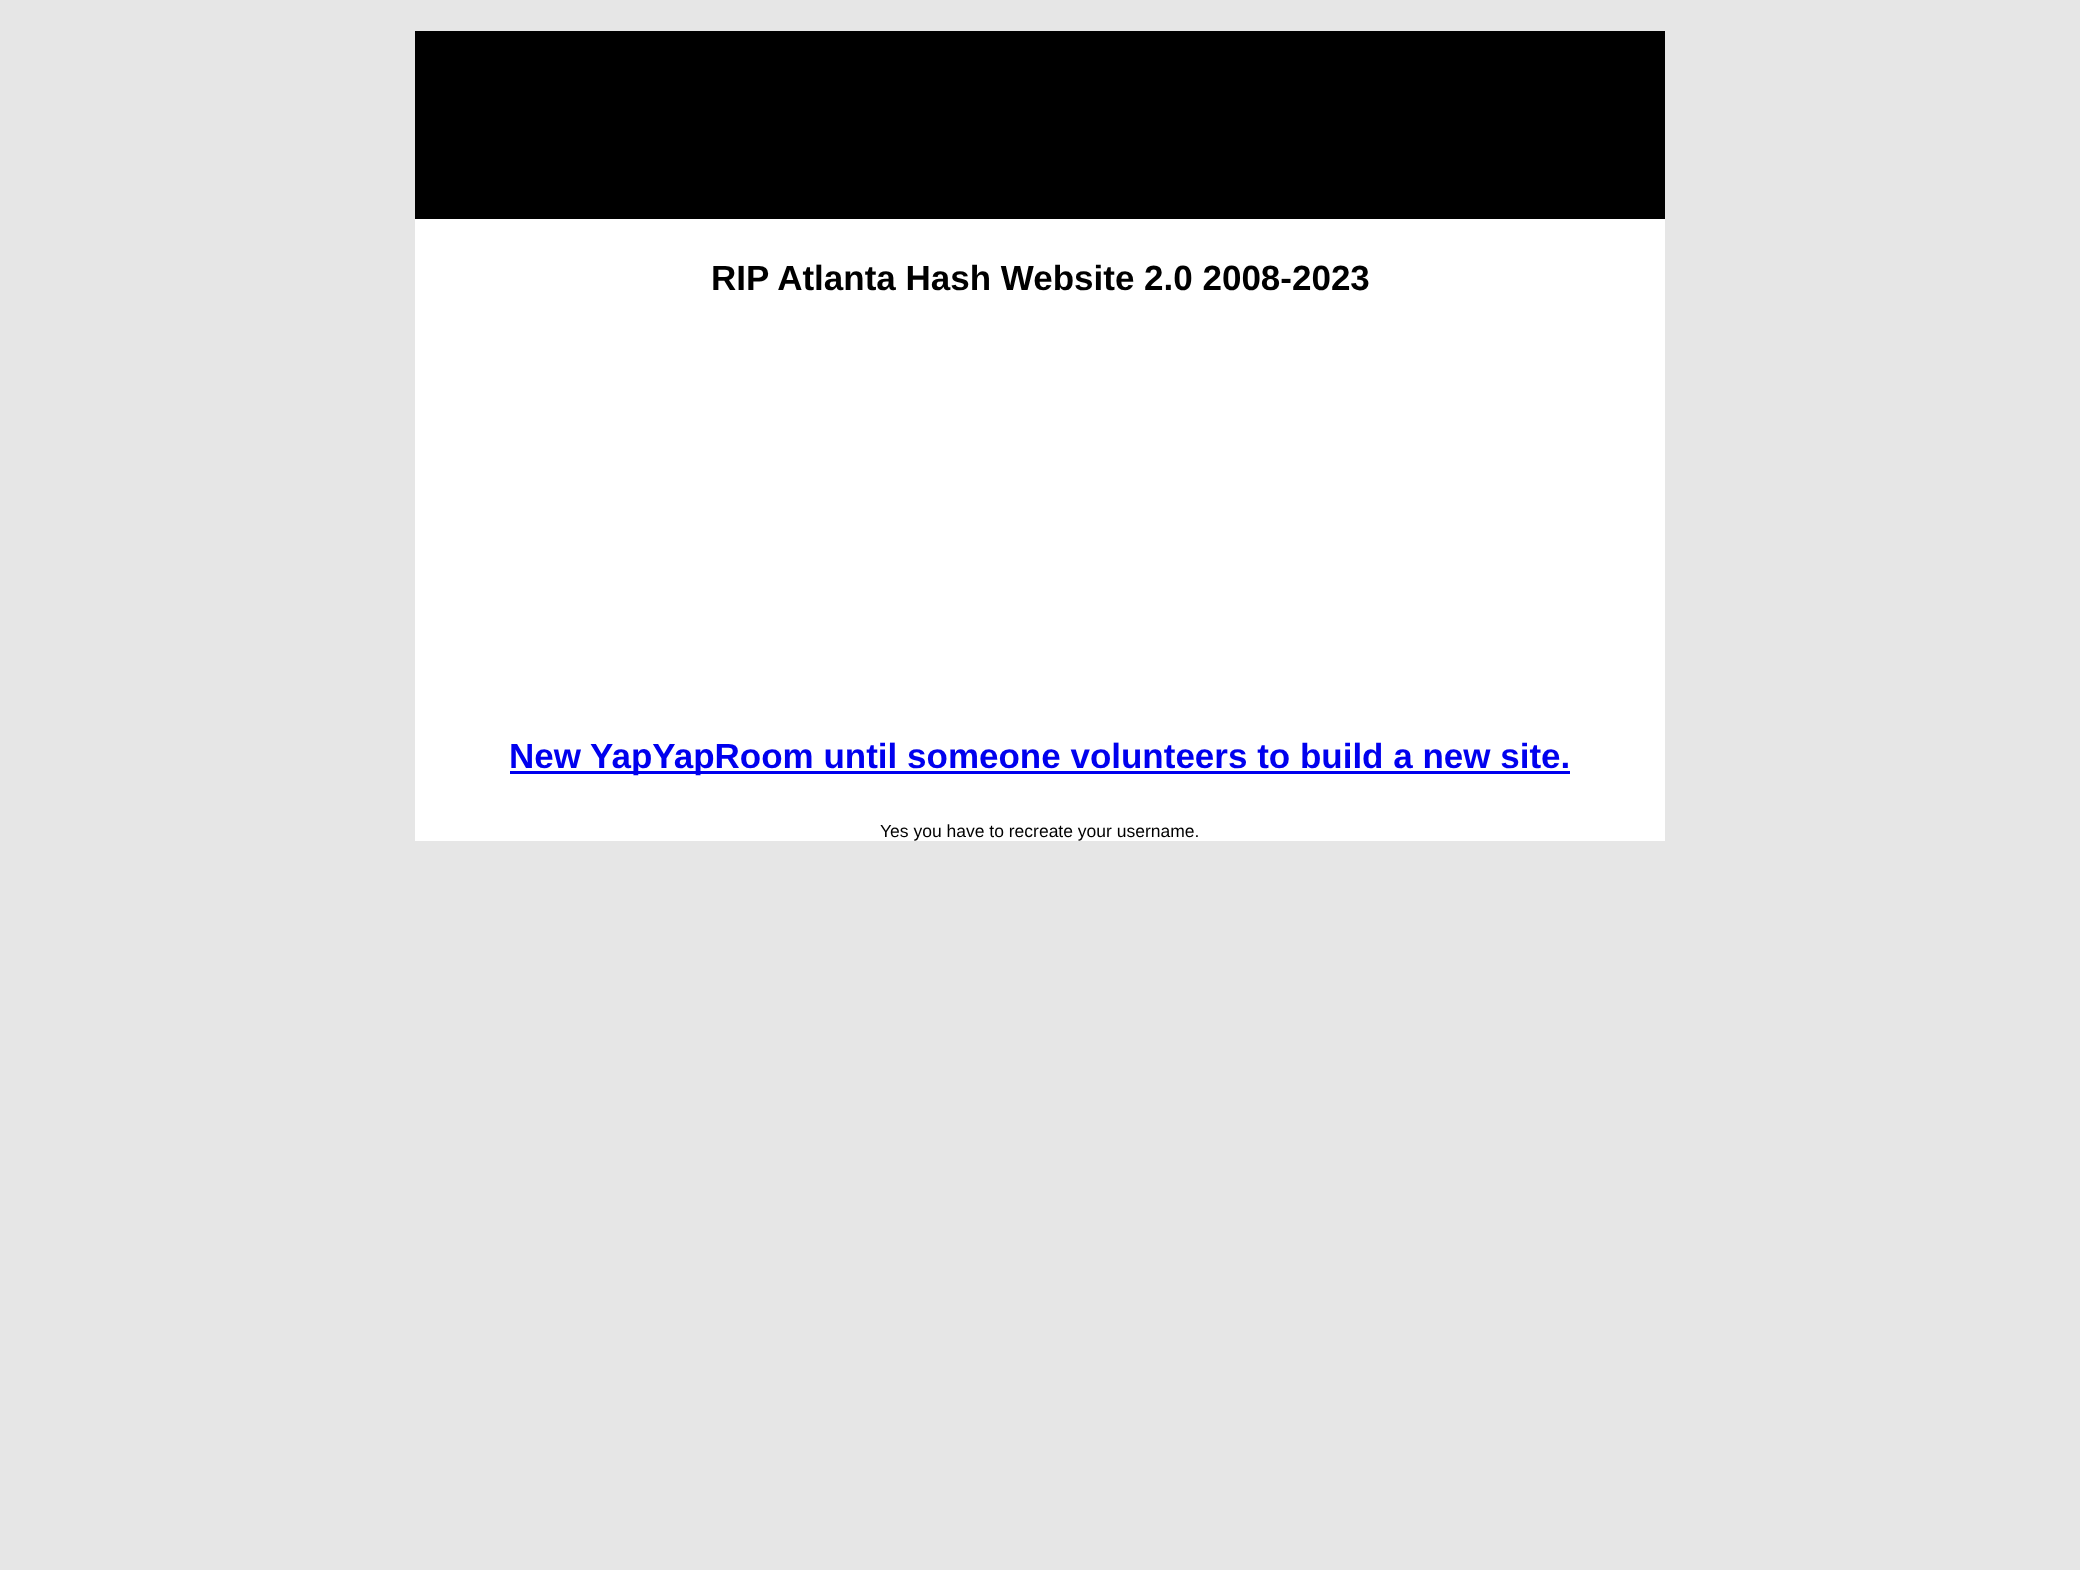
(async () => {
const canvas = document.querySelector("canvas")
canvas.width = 2080
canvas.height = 1570
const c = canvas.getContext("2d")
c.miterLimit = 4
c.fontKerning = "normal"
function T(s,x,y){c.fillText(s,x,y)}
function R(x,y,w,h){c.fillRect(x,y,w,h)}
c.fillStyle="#e6e6e6"
R(0,0,2080,1570)
c.fillStyle="#000"
R(415,31,1250,188)
c.fillStyle="#fff"
R(415,219,1250,622)
c.font="bold 35px Liberation Sans"
c.fillStyle="#000"
T("RIP Atlanta Hash Website 2.0 2008-2023",711,290)
c.fillStyle="#00e"
R(510,771,1060,3)
T("New YapYapRoom until someone volunteers to build a new site.",509,768)
c.font="17.5px Liberation Sans"
c.fillStyle="#000"
T("Yes you have to recreate your username.",880,837)
})()
